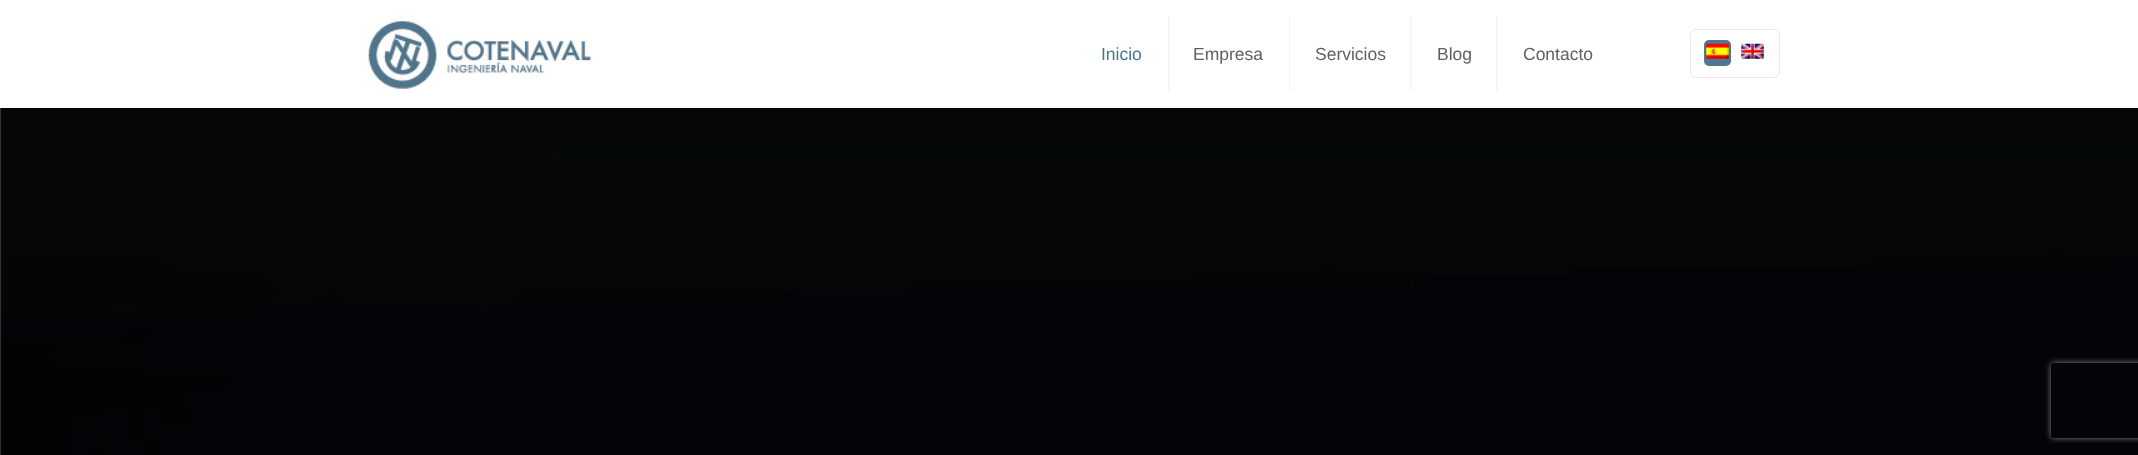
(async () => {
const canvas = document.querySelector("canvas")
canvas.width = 2138
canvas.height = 455
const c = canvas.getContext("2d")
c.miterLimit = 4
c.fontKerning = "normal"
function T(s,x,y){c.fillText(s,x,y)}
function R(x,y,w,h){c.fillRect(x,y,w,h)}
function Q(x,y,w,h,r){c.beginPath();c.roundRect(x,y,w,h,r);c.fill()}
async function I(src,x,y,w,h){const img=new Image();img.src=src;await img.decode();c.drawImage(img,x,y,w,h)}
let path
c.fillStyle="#fff"
R(0,0,2138,455)
await I("1.png",360,14,232,77)
c.fillStyle="#f2f2f2"
R(1168,16,1,75)
c.font="17.5px Liberation Sans"
c.fillStyle="#497693"
T("Inicio",1101,60)
c.fillStyle="#f2f2f2"
R(1289,16,1,75)
c.fillStyle="#5f5f5f"
T("Empresa",1193,60)
c.fillStyle="#f2f2f2"
R(1410,16,1,75)
c.fillStyle="#5f5f5f"
T("Servicios",1315,60)
c.fillStyle="#f2f2f2"
R(1496,16,1,75)
c.fillStyle="#5f5f5f"
T("Blog",1437,60)
T("Contacto",1523,60)
c.beginPath()
c.roundRect(1690.5,29.5,89,48,5.5)
c.strokeStyle="#e8e8e8"
c.stroke()
c.fillStyle="#4f7790"
Q(1704,40,27,26,5)
await I("2.png",1706,43,23,16)
await I("3.png",1741,43,23,16)
await I("4.png",0,108,2138,347)
c.save()
path = new Path2D("M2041 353h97v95h-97zm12.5 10h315c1.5 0 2.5 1 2.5 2.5v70c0 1.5-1 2.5-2.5 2.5h-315c-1.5 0-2.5-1-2.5-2.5v-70c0-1.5 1-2.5 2.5-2.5z")
c.clip(path,"evenodd")
c.fillStyle="#808080"
c.filter="blur(3px)"
c.beginPath()
c.roundRect(2051,363,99,75,2.5)
c.fill()
c.filter="none"
c.restore()
})()
